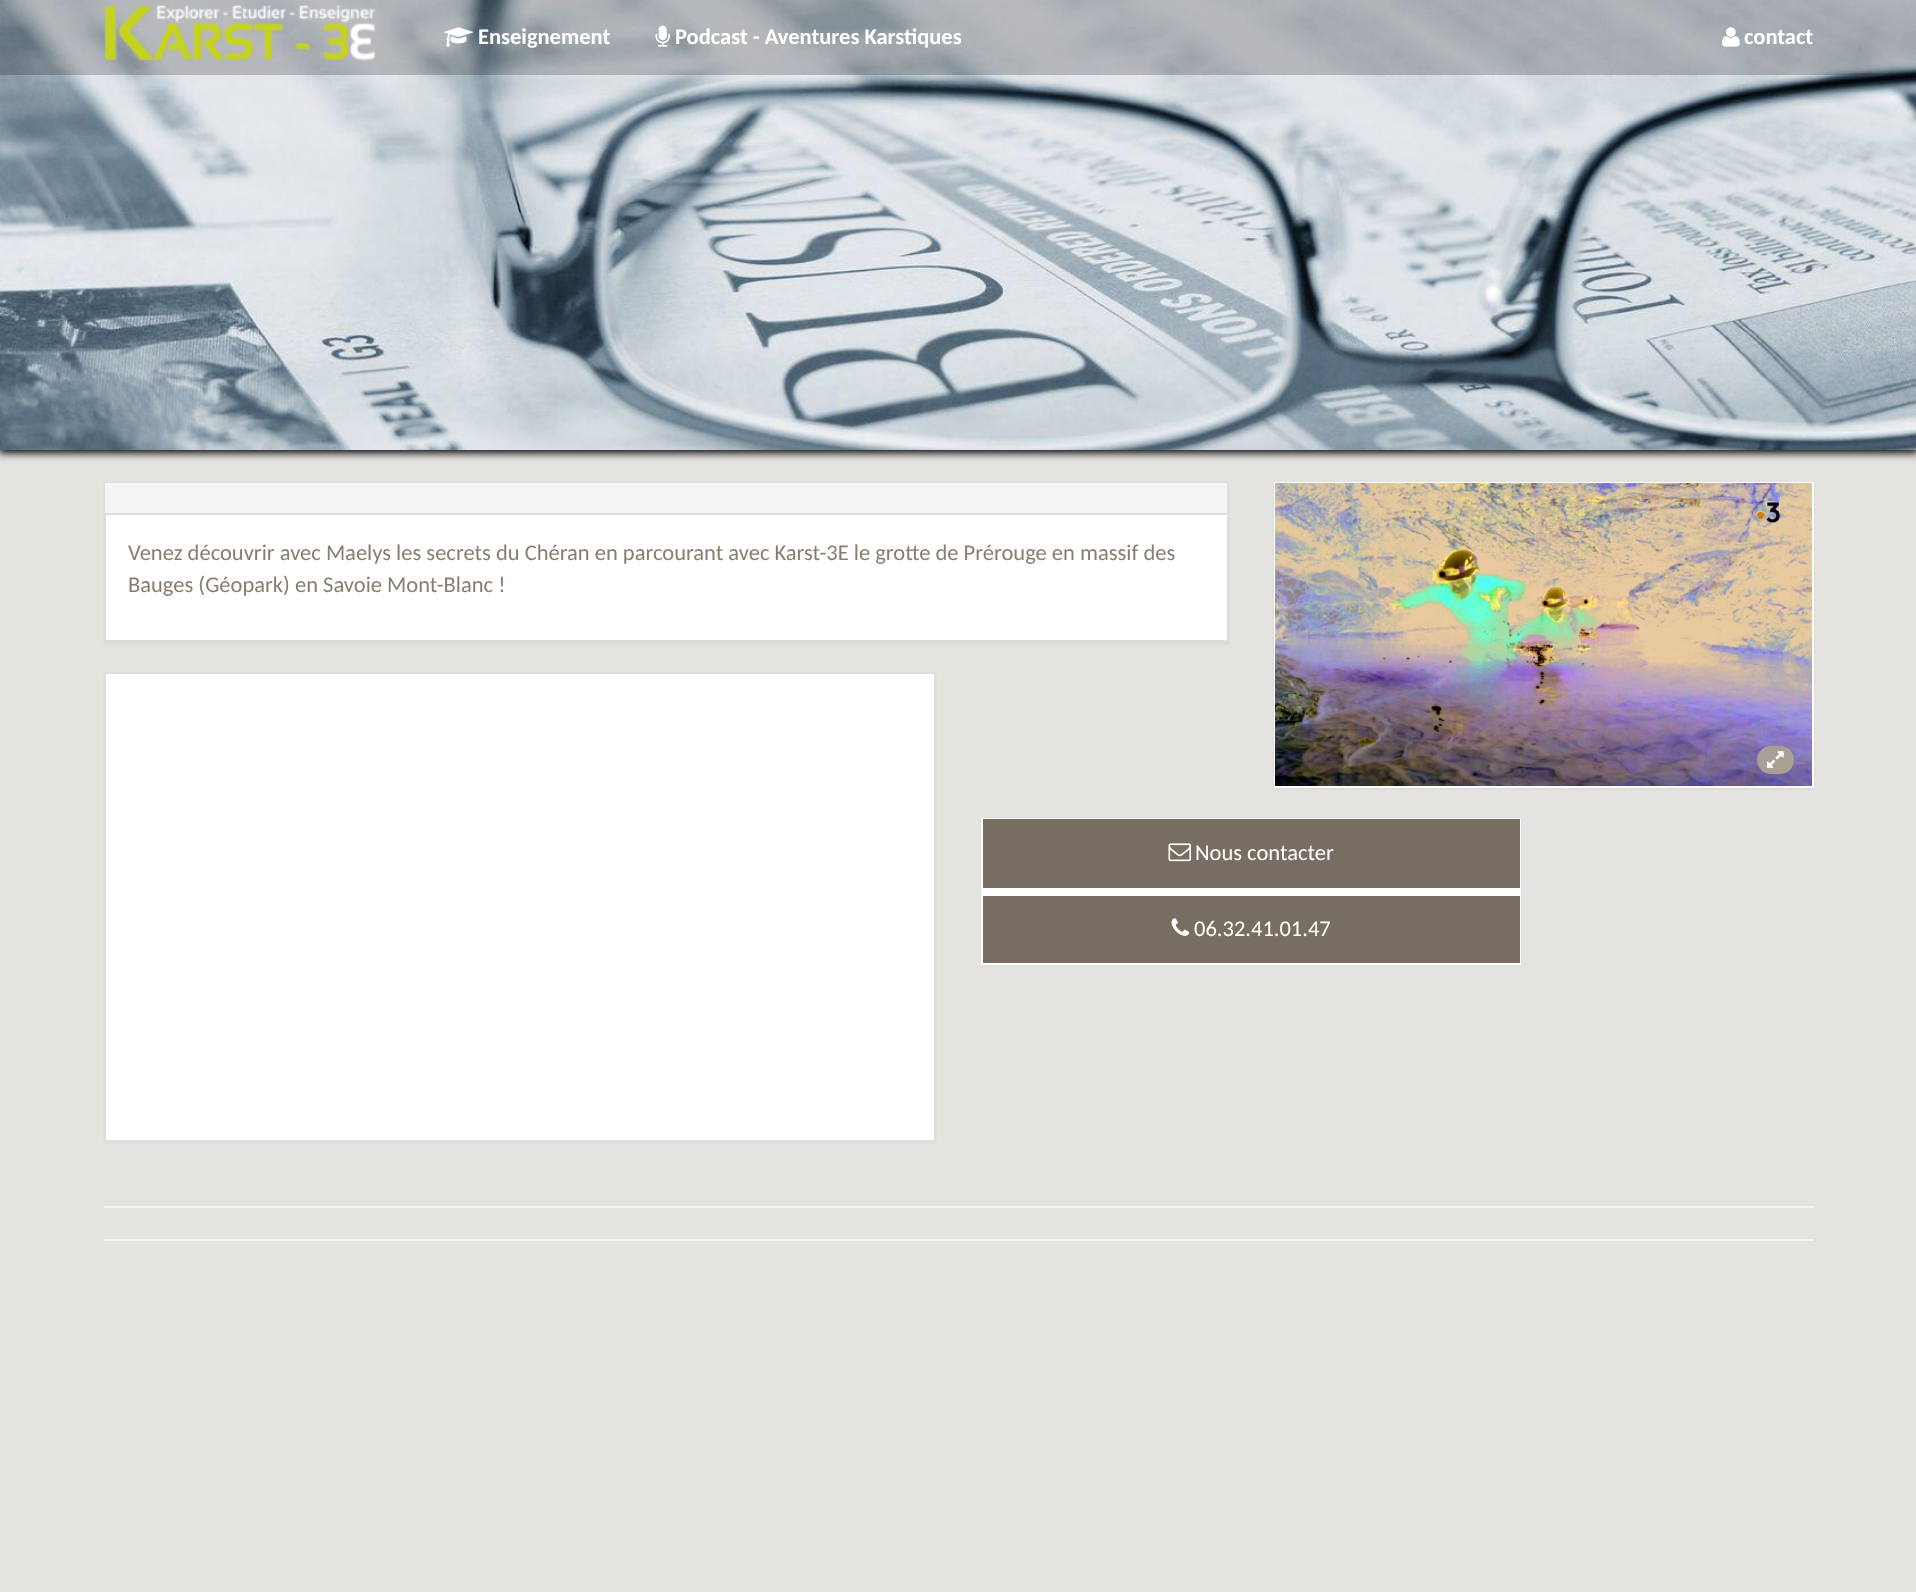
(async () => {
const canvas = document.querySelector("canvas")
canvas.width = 1916
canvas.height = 1592
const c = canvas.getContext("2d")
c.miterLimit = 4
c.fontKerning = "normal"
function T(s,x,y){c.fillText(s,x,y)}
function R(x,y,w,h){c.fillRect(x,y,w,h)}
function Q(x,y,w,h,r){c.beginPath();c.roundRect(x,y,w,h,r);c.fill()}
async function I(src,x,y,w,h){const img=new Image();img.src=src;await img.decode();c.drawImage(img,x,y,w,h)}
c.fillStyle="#e5e3e0"
R(0,0,1916,1592)
c.fillStyle="#000"
c.filter="blur(4px)"
c.beginPath()
c.rect(-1,0,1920,453)
c.fill()
c.filter="none"
await I("1.png",0,0,1916,450)
c.fillStyle="#00000033"
R(0,0,1916,75)
await I("2.png",103,4,273,57)
await I("3.png",444,27,29,20)
c.font="bold 22.5px Carlito"
c.fillStyle="#fff"
T("Enseignement",478,44)
await I("4.png",655,25,15,22)
T("Podcast - Aventures Karstiques",675,44)
await I("5.png",1722,27,18,20)
T("contact",1744,44)
c.fillStyle="#0000000d"
c.filter="blur(1px)"
c.beginPath()
c.rect(104,483,1125,161)
c.fill()
c.filter="none"
c.fillStyle="#fff"
R(106,515,1121,125)
c.strokeStyle="#ddd"
c.lineWidth=2
c.strokeRect(105,483,1123,158)
c.fillStyle="#f5f5f5"
R(105,483,1122,30)
c.fillStyle="#ddd"
R(105,513,1122,2)
c.font="22.5px Carlito"
c.fillStyle="#897d70"
T("Venez découvrir avec Maelys les secrets du Chéran en parcourant avec Karst-3E le grotte de Prérouge en massif des",128,560)
T("Bauges (Géopark) en Savoie Mont-Blanc !",128,592)
c.fillStyle="#0000000d"
c.filter="blur(1px)"
c.beginPath()
c.rect(1274,483,540,306)
c.fill()
c.filter="none"
c.fillStyle="#fff"
R(1274,482,540,306)
await I("6.png",1275,483,537,303)
c.fillStyle="#a9a095"
Q(1757,746,37,28,14)
await I("7.png",1767,751,17,17)
c.fillStyle="#0000000d"
c.filter="blur(1px)"
c.beginPath()
c.rect(104,674,832,469)
c.fill()
c.filter="none"
c.fillStyle="#fff"
c.beginPath()
c.rect(105,673,830,468)
c.fill()
c.stroke()
c.fillStyle="#0000000d"
c.filter="blur(1px)"
c.beginPath()
c.rect(981,819,540,147)
c.fill()
c.filter="none"
c.fillStyle="#fff"
R(981,818,540,147)
c.fillStyle="#776d61"
R(983,819,537,69)
await I("8.png",1168,843,23,19)
c.fillStyle="#fff"
T("Nous contacter",1195,860)
c.fillStyle="#776d61"
R(983,896,537,67)
await I("9.png",1171,918,19,18)
c.fillStyle="#fff"
T("06.32.41.01.47",1194,936)
c.fillStyle="#f3f2f0"
R(104,1206,1710,2)
R(104,1239,1710,2)
})()
